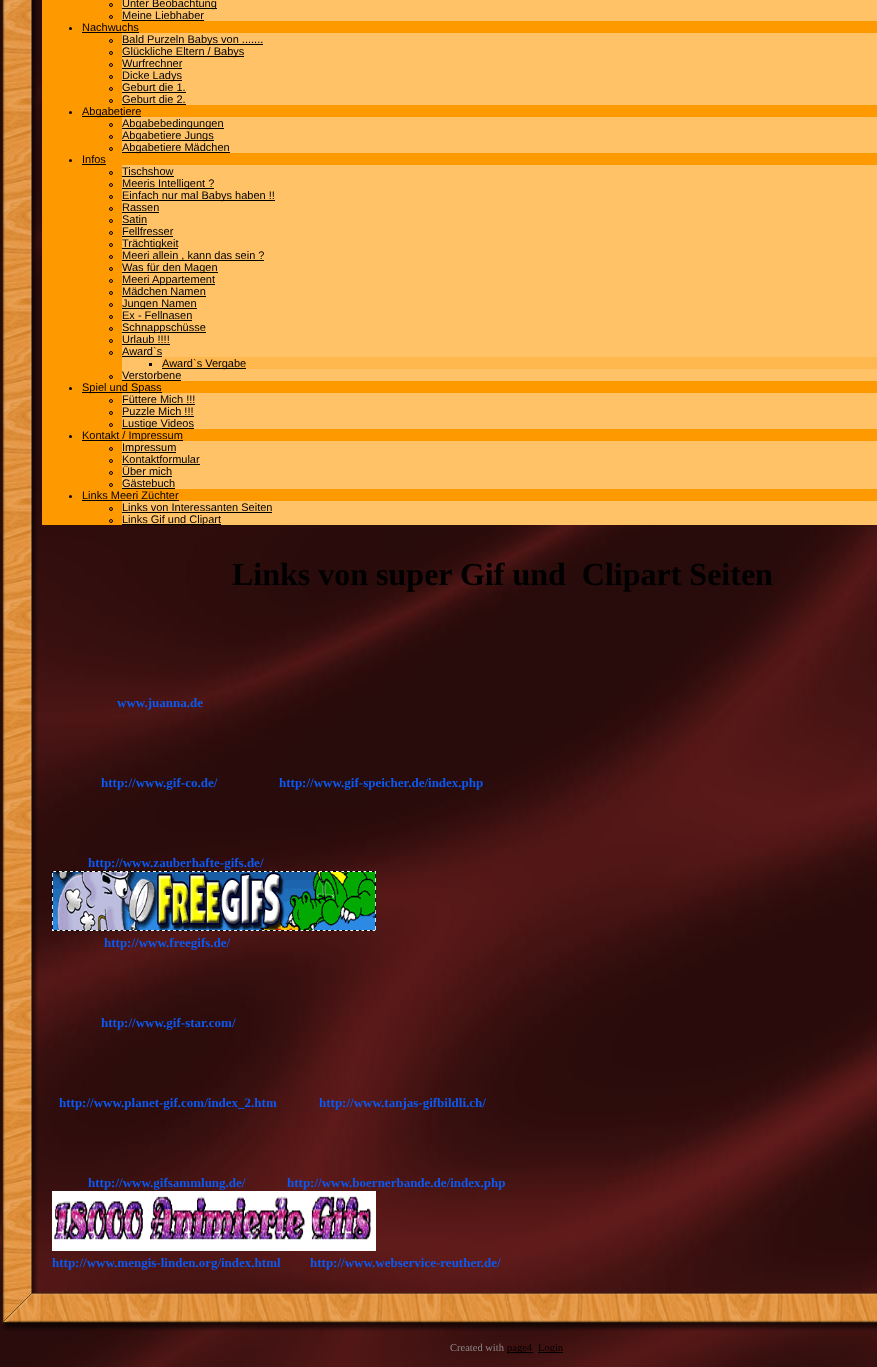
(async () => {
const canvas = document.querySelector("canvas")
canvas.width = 877
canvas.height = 1367
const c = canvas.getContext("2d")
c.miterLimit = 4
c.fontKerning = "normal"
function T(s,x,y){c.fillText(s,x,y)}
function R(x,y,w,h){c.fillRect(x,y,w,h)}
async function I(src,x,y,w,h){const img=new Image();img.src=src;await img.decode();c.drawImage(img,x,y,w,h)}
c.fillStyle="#fff"
R(0,0,877,1367)
await I("1.png",0,0,877,1367)
await I("2.png",32,0,845,1293)
await I("3.png",2,0,36,1293)
c.fillStyle="#f90"
R(42,0,835,525)
c.fillStyle="#ffc266"
R(122,0,755,21)
c.beginPath()
c.arc(111,5,1.5,0,7)
c.strokeStyle="#000"
c.stroke()
c.fillStyle="#000"
R(122,8,95,1)
c.font="11px Liberation Sans"
T("Unter Beobachtung",122,7)
c.beginPath()
c.arc(111,17,1.5,0,7)
c.stroke()
T("Meine Liebhaber",122,19)
R(122,20,82,1)
c.beginPath()
c.arc(70.5,28.5,1.5,0,7)
c.fill()
T("Nachwuchs",82,31)
R(82,32,57,1)
c.fillStyle="#ffc266"
R(122,33,755,72)
c.beginPath()
c.arc(111,41,1.5,0,7)
c.stroke()
c.fillStyle="#000"
R(122,44,141,1)
T("Bald Purzeln Babys von .......",122,43)
c.beginPath()
c.arc(111,53,1.5,0,7)
c.stroke()
R(122,56,122,1)
T("Glückliche Eltern / Babys",122,55)
c.beginPath()
c.arc(111,65,1.5,0,7)
c.stroke()
T("Wurfrechner",122,67)
R(122,68,60,1)
c.beginPath()
c.arc(111,77,1.5,0,7)
c.stroke()
R(122,80,60,1)
T("Dicke Ladys",122,79)
c.beginPath()
c.arc(111,89,1.5,0,7)
c.stroke()
T("Geburt die 1.",122,91)
R(122,92,64,1)
c.beginPath()
c.arc(111,101,1.5,0,7)
c.stroke()
T("Geburt die 2.",122,103)
R(122,104,64,1)
c.beginPath()
c.arc(70.5,112.5,1.5,0,7)
c.fill()
R(82,116,59,1)
c.fillStyle="#ffc266"
R(122,117,755,36)
c.fillStyle="#000"
T("Abgabetiere",82,115)
c.beginPath()
c.arc(111,125,1.5,0,7)
c.stroke()
R(122,128,102,1)
T("Abgabebedingungen",122,127)
c.beginPath()
c.arc(111,137,1.5,0,7)
c.stroke()
R(122,140,92,1)
T("Abgabetiere Jungs",122,139)
c.beginPath()
c.arc(111,149,1.5,0,7)
c.stroke()
R(122,152,108,1)
T("Abgabetiere Mädchen",122,151)
c.beginPath()
c.arc(70.5,160.5,1.5,0,7)
c.fill()
T("Infos",82,163)
R(82,164,24,1)
c.fillStyle="#ffc266"
R(122,165,755,216)
c.beginPath()
c.arc(111,173,1.5,0,7)
c.stroke()
c.fillStyle="#000"
T("Tischshow",122,175)
R(122,176,52,1)
c.beginPath()
c.arc(111,185,1.5,0,7)
c.stroke()
R(122,188,92,1)
T("Meeris Intelligent ?",122,187)
c.beginPath()
c.arc(111,197,1.5,0,7)
c.stroke()
R(122,200,153,1)
T("Einfach nur mal Babys haben !!",122,199)
c.beginPath()
c.arc(111,209,1.5,0,7)
c.stroke()
T("Rassen",122,211)
R(122,212,37,1)
c.beginPath()
c.arc(111,221,1.5,0,7)
c.stroke()
T("Satin",122,223)
R(122,224,25,1)
c.beginPath()
c.arc(111,233,1.5,0,7)
c.stroke()
T("Fellfresser",122,235)
R(122,236,51,1)
c.beginPath()
c.arc(111,245,1.5,0,7)
c.stroke()
R(122,248,56,1)
T("Trächtigkeit",122,247)
c.beginPath()
c.arc(111,257,1.5,0,7)
c.stroke()
R(122,260,142,1)
T("Meeri allein , kann das sein ?",122,259)
c.beginPath()
c.arc(111,269,1.5,0,7)
c.stroke()
R(122,272,96,1)
T("Was für den Magen",122,271)
c.beginPath()
c.arc(111,281,1.5,0,7)
c.stroke()
R(122,284,93,1)
T("Meeri Appartement",122,283)
c.beginPath()
c.arc(111,293,1.5,0,7)
c.stroke()
T("Mädchen Namen",122,295)
R(122,296,84,1)
c.beginPath()
c.arc(111,305,1.5,0,7)
c.stroke()
R(122,308,75,1)
T("Jungen Namen",122,307)
c.beginPath()
c.arc(111,317,1.5,0,7)
c.stroke()
T("Ex - Fellnasen",122,319)
R(122,320,70,1)
c.beginPath()
c.arc(111,329,1.5,0,7)
c.stroke()
R(122,332,84,1)
T("Schnappschüsse",122,331)
c.beginPath()
c.arc(111,341,1.5,0,7)
c.stroke()
T("Urlaub !!!!",122,343)
R(122,344,48,1)
c.beginPath()
c.arc(111,353,1.5,0,7)
c.stroke()
T("Award`s",122,355)
R(122,356,40,1)
c.fillStyle="#ffb84d"
R(162,357,715,12)
c.fillStyle="#000"
R(149,363,3,3)
R(162,368,84,1)
T("Award`s Vergabe",162,367)
c.beginPath()
c.arc(111,377,1.5,0,7)
c.stroke()
T("Verstorbene",122,379)
R(122,380,59,1)
c.beginPath()
c.arc(70.5,388.5,1.5,0,7)
c.fill()
R(82,392,80,1)
c.fillStyle="#ffc266"
R(122,393,755,36)
c.fillStyle="#000"
T("Spiel und Spass",82,391)
c.beginPath()
c.arc(111,401,1.5,0,7)
c.stroke()
T("Füttere Mich !!!",122,403)
R(122,404,73,1)
c.beginPath()
c.arc(111,413,1.5,0,7)
c.stroke()
T("Puzzle Mich !!!",122,415)
R(122,416,72,1)
c.beginPath()
c.arc(111,425,1.5,0,7)
c.stroke()
R(122,428,72,1)
T("Lustige Videos",122,427)
c.beginPath()
c.arc(70.5,436.5,1.5,0,7)
c.fill()
R(82,440,101,1)
c.fillStyle="#ffc266"
R(122,441,755,48)
c.fillStyle="#000"
T("Kontakt / Impressum",82,439)
c.beginPath()
c.arc(111,449,1.5,0,7)
c.stroke()
R(122,452,54,1)
T("Impressum",122,451)
c.beginPath()
c.arc(111,461,1.5,0,7)
c.stroke()
T("Kontaktformular",122,463)
R(122,464,78,1)
c.beginPath()
c.arc(111,473,1.5,0,7)
c.stroke()
T("Über mich",122,475)
R(122,476,50,1)
c.beginPath()
c.arc(111,485,1.5,0,7)
c.stroke()
T("Gästebuch",122,487)
R(122,488,53,1)
c.beginPath()
c.arc(70.5,496.5,1.5,0,7)
c.fill()
T("Links Meeri Züchter",82,499)
R(82,500,97,1)
c.fillStyle="#ffc266"
R(122,501,755,24)
c.beginPath()
c.arc(111,509,1.5,0,7)
c.stroke()
c.fillStyle="#000"
T("Links von Interessanten Seiten",122,511)
R(122,512,150,1)
c.beginPath()
c.arc(111,521,1.5,0,7)
c.stroke()
R(122,524,99,1)
T("Links Gif und Clipart",122,523)
c.font="bold 32px Liberation Serif"
T("Links von super Gif und  Clipart Seiten",232,585)
c.font="bold 13px Liberation Serif"
c.fillStyle="#0d58f0"
T("www.juanna.de",117,707)
T("http://www.gif-co.de/",101,787)
T("http://www.gif-speicher.de/index.php",279,787)
T("http://www.zauberhafte-gifs.de/",88,867)
await I("4.png",52,871,324,60)
T("http://www.freegifs.de/",104,947)
T("http://www.gif-star.com/",101,1027)
T("http://www.planet-gif.com/index_2.htm",59,1107)
T("http://www.tanjas-gifbildli.ch/",319,1107)
T("http://www.gifsammlung.de/",88,1187)
T("http://www.boernerbande.de/index.php",287,1187)
await I("5.png",52,1191,324,60)
T("http://www.mengis-linden.org/index.html",52,1267)
T("http://www.webservice-reuther.de/",310,1267)
await I("6.png",2,1293,875,38)
c.font="10.5px Liberation Serif"
c.fillStyle="#8d8d8d"
T("Created with",450,1351)
c.fillStyle="#000"
R(507,1352,26,1)
T("page4",507,1351)
R(538,1352,25,1)
T("Login",538,1351)
})()
